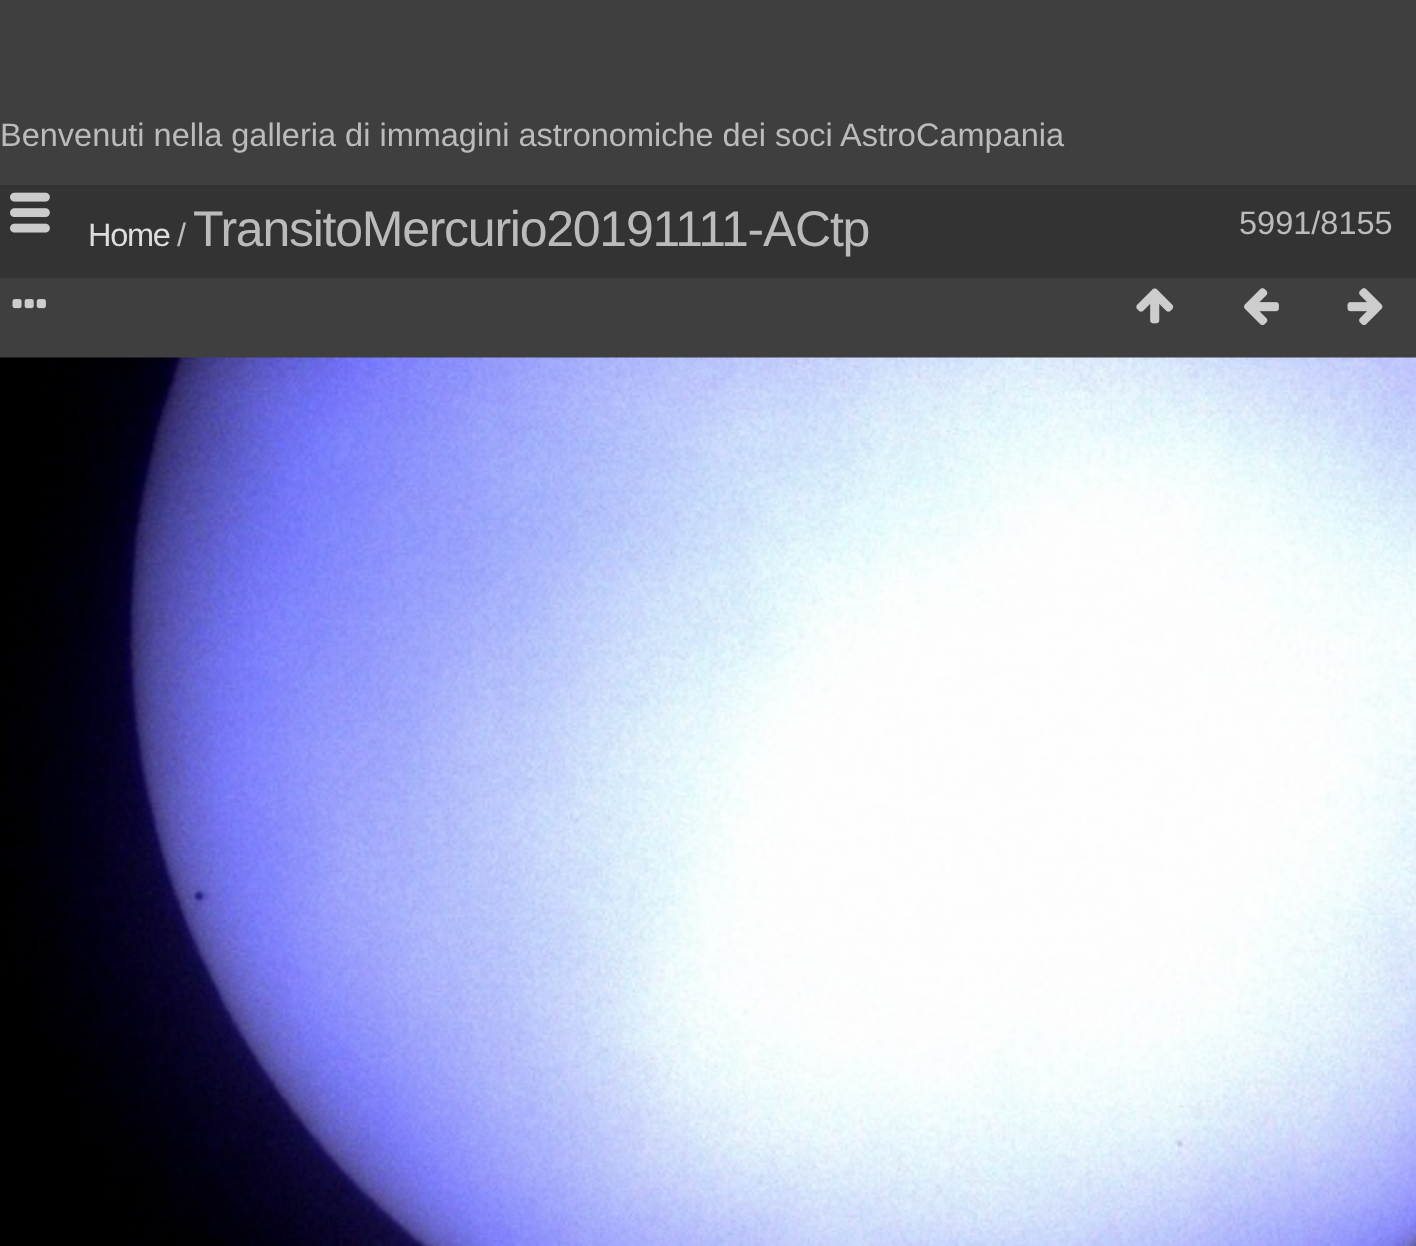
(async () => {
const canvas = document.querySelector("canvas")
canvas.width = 1416
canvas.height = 1246
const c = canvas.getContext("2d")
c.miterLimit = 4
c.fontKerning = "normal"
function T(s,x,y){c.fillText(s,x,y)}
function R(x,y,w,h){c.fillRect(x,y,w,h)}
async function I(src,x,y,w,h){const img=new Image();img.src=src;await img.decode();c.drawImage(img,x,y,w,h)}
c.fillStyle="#3f3f3f"
R(0,0,1416,1246)
c.font="32.5px Liberation Sans"
c.fillStyle="#bbb"
T("Benvenuti nella galleria di immagini astronomiche dei soci AstroCampania",0,146)
c.fillStyle="#333"
R(0,185,1416,93)
await I("1.png",10,192,40,41)
c.letterSpacing="-1.25px"
c.fillStyle="#ddd"
T("Home",88,246)
c.fillStyle="#bbb"
T("/",177,246)
c.font="50px Liberation Sans"
T("TransitoMercurio20191111-ACtp",193,246)
c.letterSpacing="0px"
c.font="32.5px Liberation Sans"
T("5991/8155",1239,234)
await I("2.png",12,299,34,10)
await I("3.png",1136,288,38,36)
await I("4.png",1244,288,35,38)
await I("5.png",1347,288,36,37)
await I("6.png",0,357,1416,889)
})()
